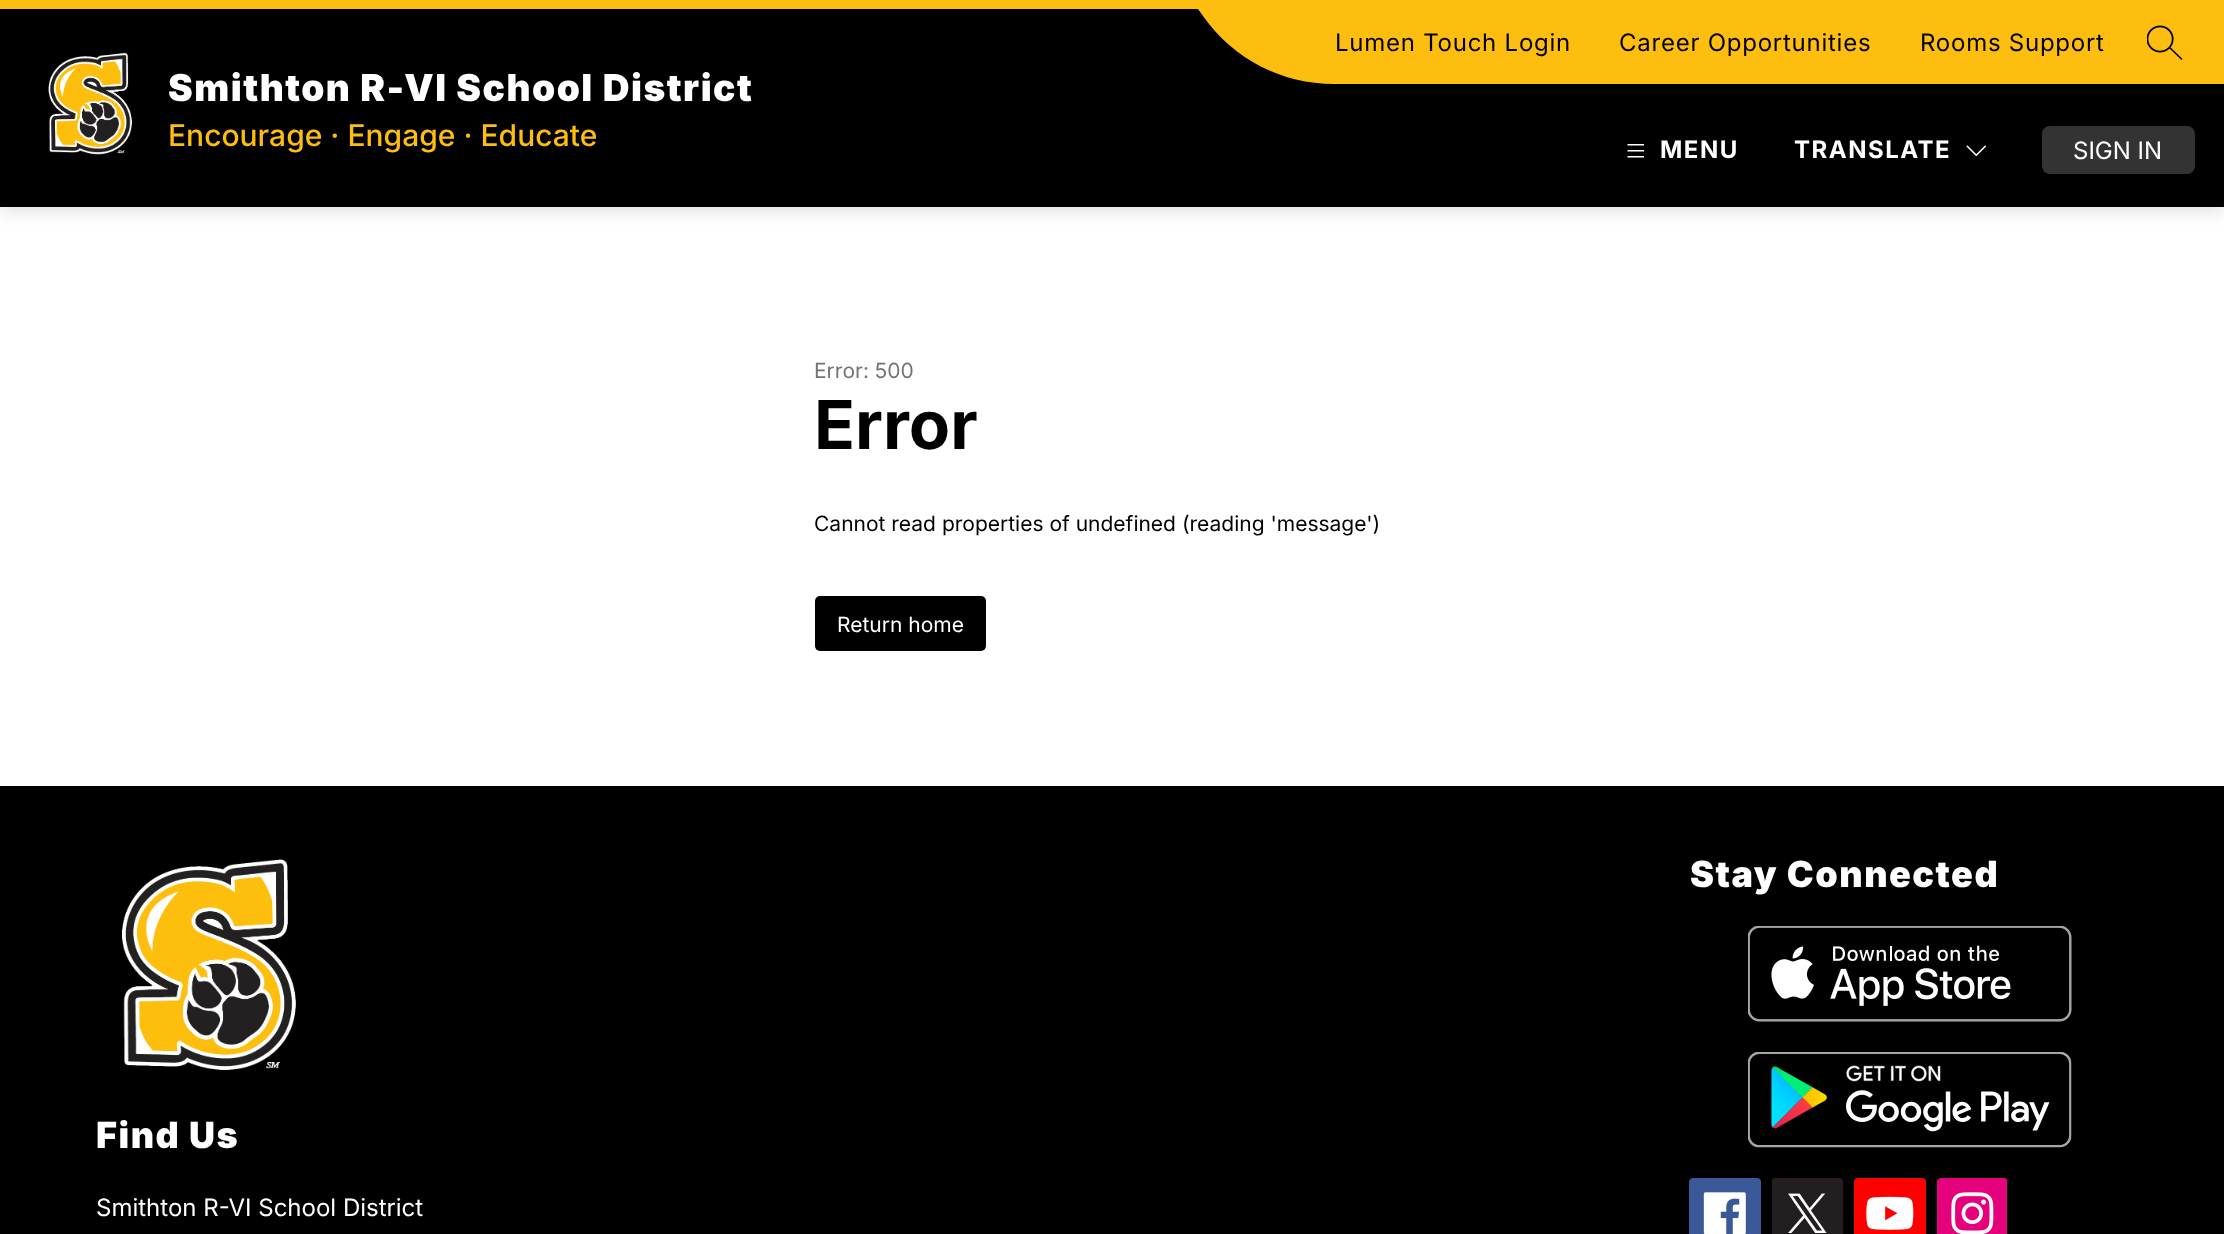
(async () => {
const canvas = document.querySelector("canvas")
canvas.width = 2224
canvas.height = 1234
const c = canvas.getContext("2d")
c.miterLimit = 4
c.fontKerning = "normal"
function T(s,x,y){c.fillText(s,x,y)}
function R(x,y,w,h){c.fillRect(x,y,w,h)}
function Q(x,y,w,h,r){c.beginPath();c.roundRect(x,y,w,h,r);c.fill()}
async function I(src,x,y,w,h){const img=new Image();img.src=src;await img.decode();c.drawImage(img,x,y,w,h)}
let path
c.fillStyle="#fff"
R(0,0,2224,1234)
c.fillStyle="#0000001a"
c.filter="blur(7.5px)"
c.beginPath()
c.rect(0,6,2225,207)
c.fill()
c.filter="none"
c.fillStyle="#000"
R(0,9,2224,198)
c.fillStyle="#febe10"
R(0,0,1198,9)
await I("1.png",48,52,84,103)
c.letterSpacing="1.5px"
c.font="900 37.1px Inter"
c.fillStyle="#fff"
T("Smithton R-VI School District",168,101)
c.letterSpacing="0px"
c.font="500 30px Inter"
c.fillStyle="#febe10"
T("Encourage · Engage · Educate",168,146)
R(1338,0,886,84)
path = new Path2D("M1334 84h4v-84h-144c-1 0-2 1-1 2l10 14c30 43 79 68 131 68z")
c.fill(path)
c.letterSpacing="0.75px"
c.font="24px Inter"
c.fillStyle="#000"
T("Lumen Touch Login",1335,51)
T("Career Opportunities",1619,51)
T("Rooms Support",1920,51)
await I("2.png",2147,25,36,35)
await I("3.png",1627,144,17,14)
c.letterSpacing="1.5px"
c.font="bold 24px Inter"
c.fillStyle="#fff"
T("MENU",1660,158)
T("TRANSLATE",1794,158)
await I("4.png",1966,145,20,11)
c.fillStyle="#333"
c.beginPath()
c.roundRect(2043,127,151,46,7)
c.fill()
c.strokeStyle="#333"
c.lineWidth=2
c.stroke()
c.letterSpacing="0px"
c.font="24px Inter"
c.fillStyle="#fff"
T("SIGN IN",2073,159)
c.font="21px Inter"
c.fillStyle="#747474"
T("Error: 500",814,378)
c.font="bold 67.5px Inter"
c.fillStyle="#000"
T("Error",814,449)
c.font="21px Inter"
T("Cannot read properties of undefined (reading 'message')",814,531)
Q(815,596,171,55,5)
c.fillStyle="#fff"
T("Return home",837,632)
c.fillStyle="#000"
R(0,786,2224,448)
c.letterSpacing="1.5px"
c.font="900 36px Inter"
c.fillStyle="#fff"
T("Stay Connected",1690,887)
await I("5.png",1748,926,324,96)
await I("6.png",1748,1052,324,96)
await I("7.png",1689,1178,72,56)
await I("8.png",1772,1178,72,56)
await I("9.png",1854,1178,72,56)
await I("10.png",1937,1178,70,56)
await I("11.png",122,859,174,211)
T("Find Us",96,1148)
c.letterSpacing="0px"
c.font="24px Inter"
T("Smithton R-VI School District",96,1216)
})()
